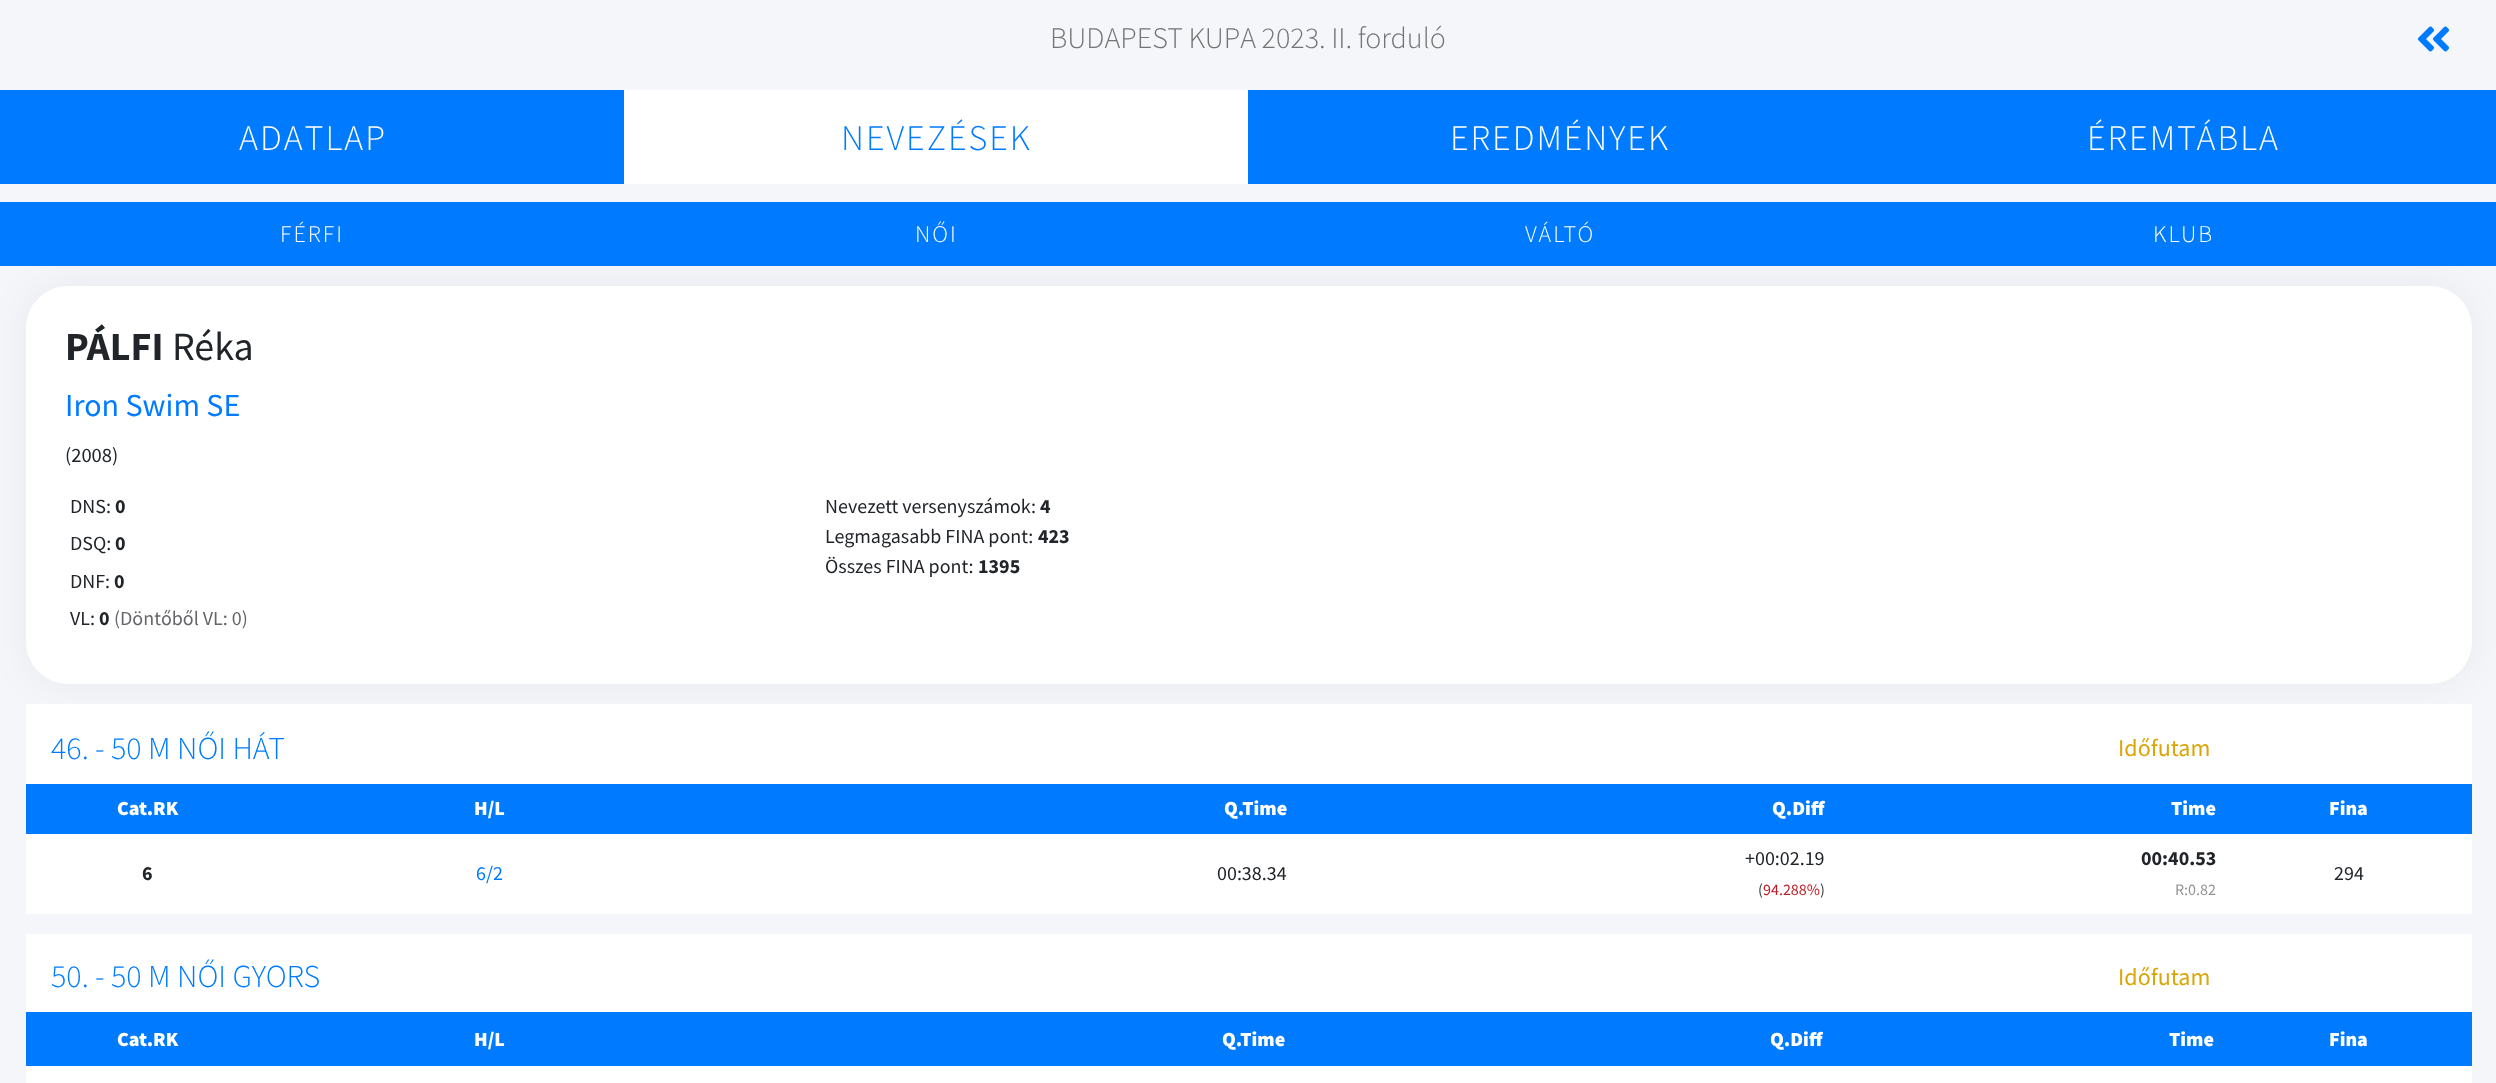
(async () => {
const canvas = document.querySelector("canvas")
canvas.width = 2496
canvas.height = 1083
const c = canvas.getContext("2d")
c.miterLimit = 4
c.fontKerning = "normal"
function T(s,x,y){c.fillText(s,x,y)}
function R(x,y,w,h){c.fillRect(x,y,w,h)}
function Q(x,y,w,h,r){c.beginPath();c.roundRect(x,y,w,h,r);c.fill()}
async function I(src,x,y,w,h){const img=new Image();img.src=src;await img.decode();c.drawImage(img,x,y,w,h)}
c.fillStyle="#f4f6f9"
R(0,0,2496,1083)
c.wordSpacing="-0.5px"
c.font="300 30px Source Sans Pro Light"
c.fillStyle="#747474"
T("BUDAPEST KUPA 2023. II. forduló",1050,48)
await I("1.png",2418,26,31,26)
c.fillStyle="#007bff"
R(0,90,2496,94)
c.letterSpacing="2px"
c.wordSpacing="0px"
c.font="300 36px Source Sans Pro Light"
c.fillStyle="#fff"
T("ADATLAP",239,150)
R(624,90,624,94)
c.fillStyle="#007bff"
T("NEVEZÉSEK",841,150)
c.fillStyle="#fff"
T("EREDMÉNYEK",1450,150)
T("ÉREMTÁBLA",2087,150)
c.fillStyle="#007bff"
R(0,202,2496,64)
c.font="300 24px Source Sans Pro Light"
c.fillStyle="#fff"
T("FÉRFI",280,242)
T("NŐI",915,242)
T("VÁLTÓ",1525,242)
T("KLUB",2153,242)
c.fillStyle="#0000000d"
c.filter="blur(20px)"
c.beginPath()
c.roundRect(26,286,2446,398,42)
c.fill()
c.filter="none"
c.fillStyle="#fff"
Q(26,286,2446,398,42)
c.letterSpacing="0px"
c.font="bold 40px Source Sans Pro"
c.fillStyle="#212529"
T("PÁLFI",65,360)
c.font="40px Source Sans Pro"
T("Réka",172,360)
c.font="32px Source Sans Pro"
c.fillStyle="#007bff"
T("Iron Swim SE",65,416)
c.font="20.5px Source Sans Pro"
c.fillStyle="#212529"
T("(2008)",65,462)
c.font="20px Source Sans Pro"
T("DNS:",70,513)
c.font="bold 20px Source Sans Pro"
T("0",115,513)
c.font="20px Source Sans Pro"
T("DSQ:",70,550)
c.font="bold 20px Source Sans Pro"
T("0",115,550)
c.font="20px Source Sans Pro"
T("DNF:",70,588)
c.font="bold 20px Source Sans Pro"
T("0",114,588)
c.font="20px Source Sans Pro"
T("VL:",70,625)
c.font="bold 20px Source Sans Pro"
T("0",99,625)
c.font="20px Source Sans Pro"
c.fillStyle="#646669"
T("(Döntőből VL: 0)",114,625)
c.fillStyle="#212529"
T("Nevezett versenyszámok:",825,513)
c.font="bold 20px Source Sans Pro"
T("4",1040,513)
c.font="20px Source Sans Pro"
T("Legmagasabb FINA pont:",825,543)
c.font="bold 20px Source Sans Pro"
T("423",1038,543)
c.font="20px Source Sans Pro"
T("Összes FINA pont:",825,573)
c.font="bold 20px Source Sans Pro"
T("1395",978,573)
c.fillStyle="#fff"
R(26,704,2446,210)
c.font="300 32px Source Sans Pro Light"
c.fillStyle="#007bff"
T("46. - 50 M NŐI HÁT",51,759)
c.font="24px Source Sans Pro"
c.fillStyle="#daa506"
T("Időfutam",2118,756)
c.fillStyle="#007bff"
R(26,784,2446,50)
c.font="900 20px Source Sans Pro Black"
c.fillStyle="#fff"
T("Cat.RK",117,815)
T("H/L",474,815)
T("Q.Time",1224,815)
T("Q.Diff",1772,815)
T("Time",2171,815)
T("Fina",2329,815)
c.font="bold 20px Source Sans Pro"
c.fillStyle="#212529"
T("6",142,880)
c.font="20px Source Sans Pro"
c.fillStyle="#007bff"
T("6/2",476,880)
c.fillStyle="#212529"
T("00:38.34",1217,880)
T("+00:02.19",1745,865)
c.font="16px Source Sans Pro"
c.fillStyle="#373b3e"
T("(",1758,895)
c.fillStyle="#bc1f26"
T("94.288%",1763,895)
c.fillStyle="#373b3e"
T(")",1820,895)
c.font="bold 20px Source Sans Pro"
c.fillStyle="#212529"
T("00:40.53",2141,865)
c.font="16px Source Sans Pro"
c.fillStyle="#909294"
T("R:0.82",2175,895)
c.font="20px Source Sans Pro"
c.fillStyle="#212529"
T("294",2334,880)
c.fillStyle="#fff"
R(26,934,2446,149)
c.font="300 32px Source Sans Pro Light"
c.fillStyle="#007bff"
T("50. - 50 M NŐI GYORS",51,987)
c.font="24px Source Sans Pro"
c.fillStyle="#daa506"
T("Időfutam",2118,985)
c.fillStyle="#007bff"
R(26,1012,2446,54)
c.font="900 20px Source Sans Pro Black"
c.fillStyle="#fff"
T("Cat.RK",117,1046)
T("H/L",474,1046)
T("Q.Time",1222,1046)
T("Q.Diff",1770,1046)
T("Time",2169,1046)
T("Fina",2329,1046)
})()
